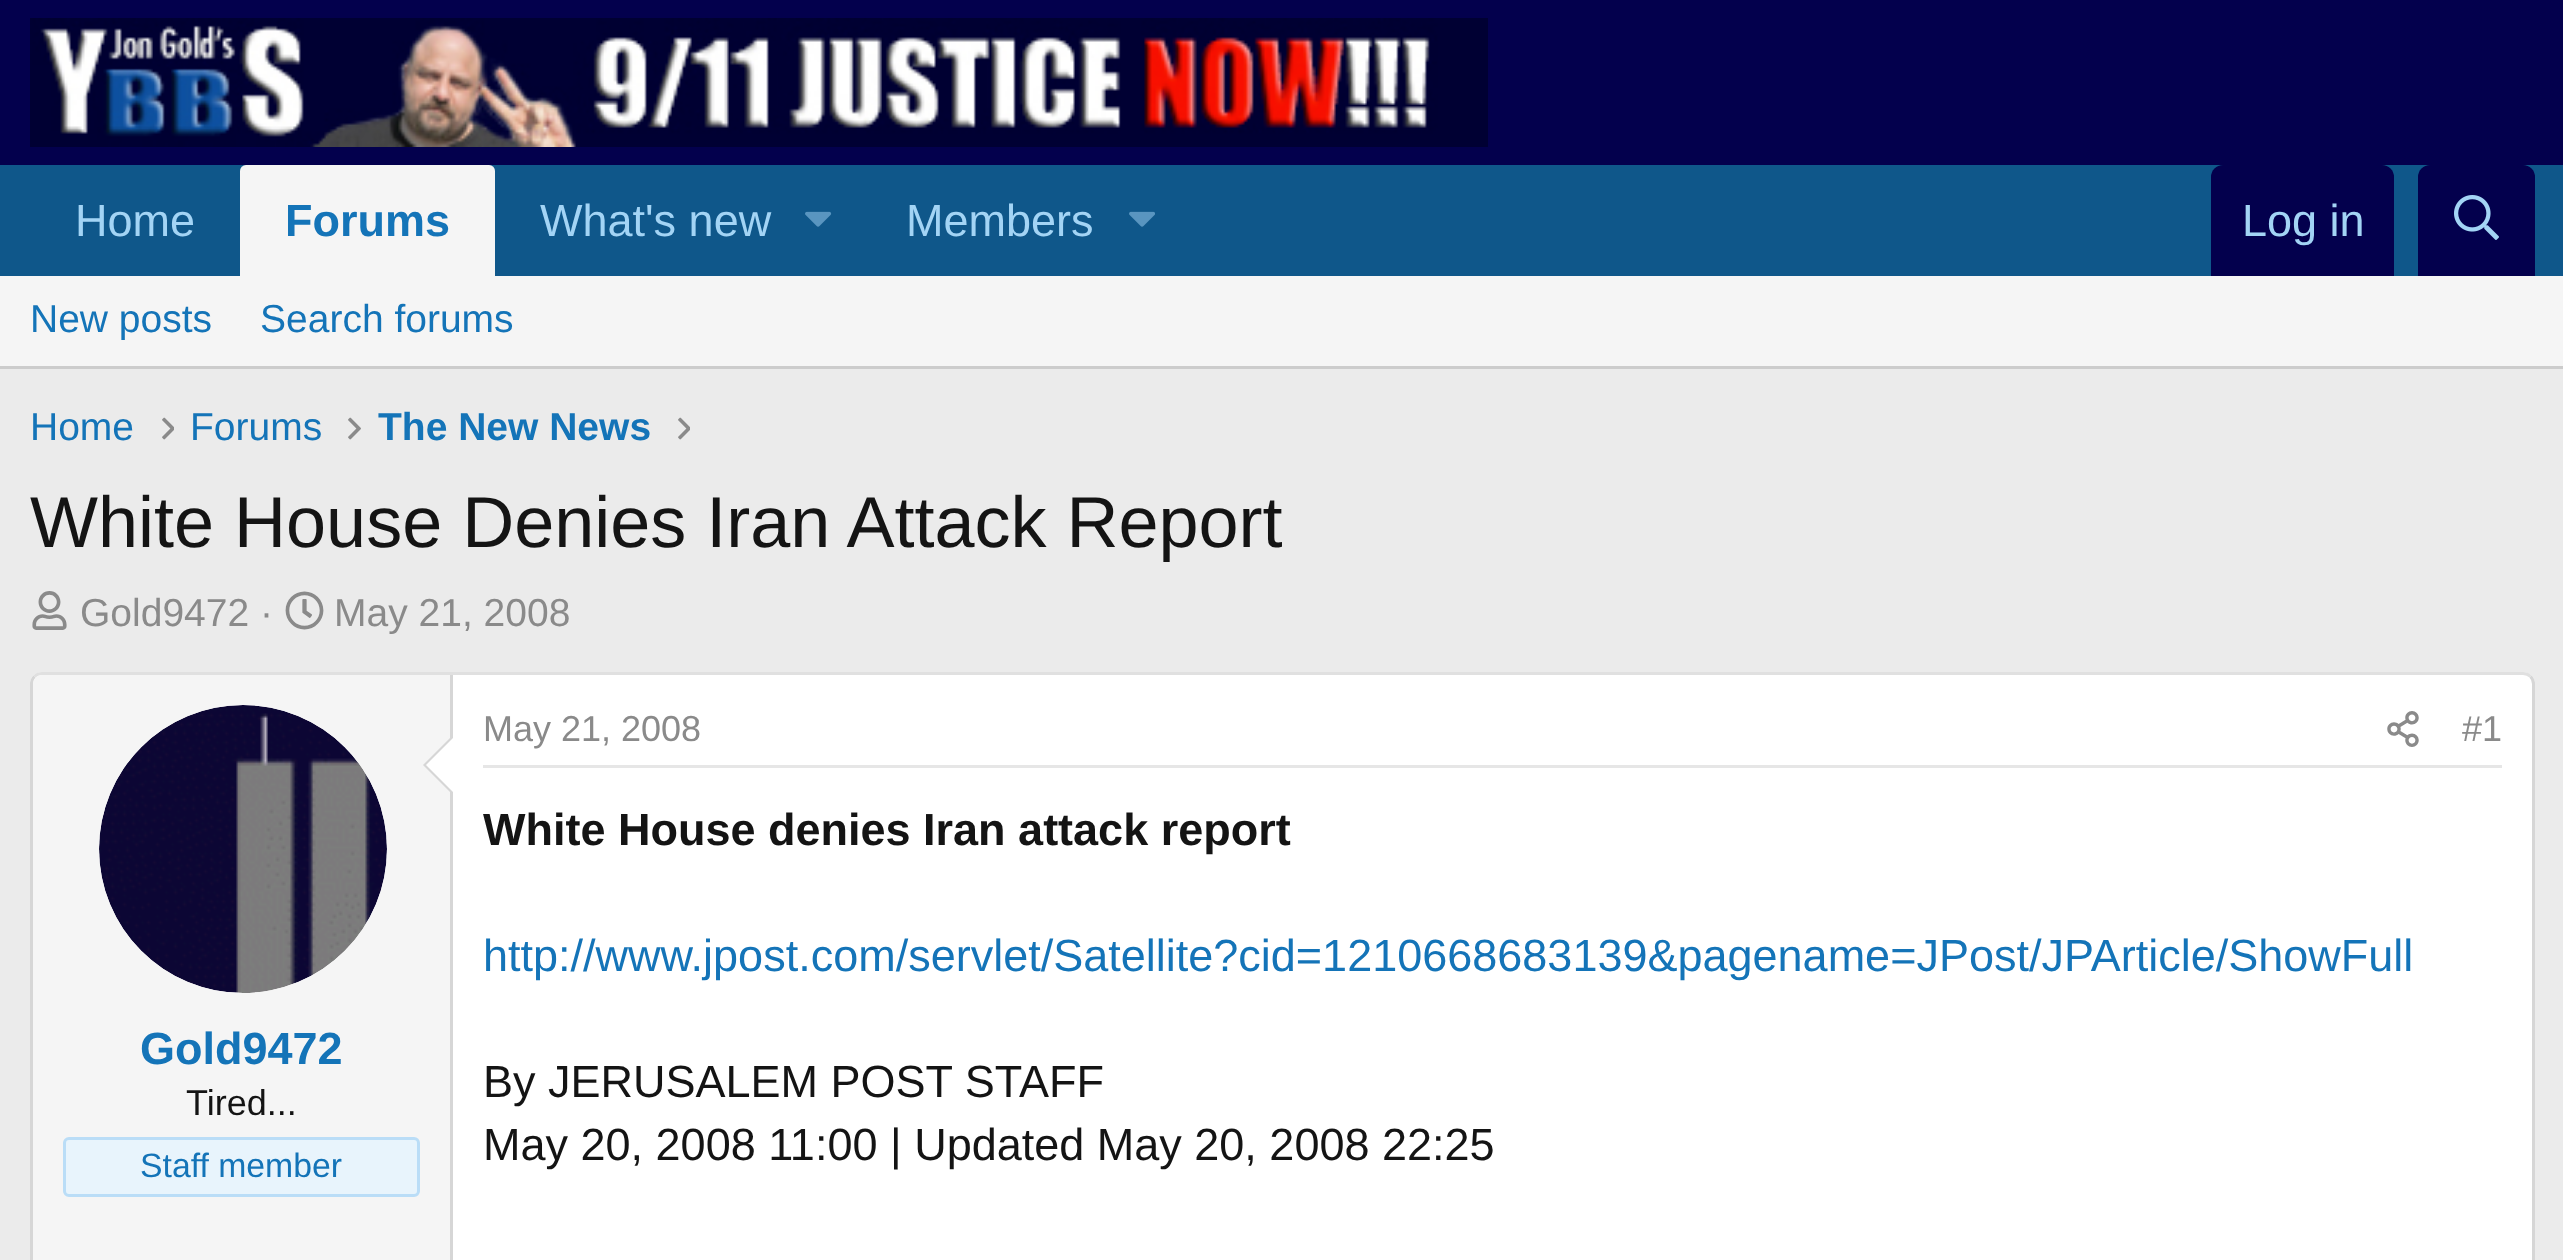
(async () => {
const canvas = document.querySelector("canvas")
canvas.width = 2563
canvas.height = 1260
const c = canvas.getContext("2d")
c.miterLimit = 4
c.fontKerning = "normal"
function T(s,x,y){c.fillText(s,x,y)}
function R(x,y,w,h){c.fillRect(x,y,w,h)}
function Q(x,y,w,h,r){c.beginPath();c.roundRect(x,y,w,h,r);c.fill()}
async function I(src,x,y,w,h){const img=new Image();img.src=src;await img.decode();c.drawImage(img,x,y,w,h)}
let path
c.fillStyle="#ebebeb"
R(0,0,2563,1260)
c.fillStyle="#03004d"
R(0,0,2563,165)
await I("1.png",30,18,1458,129)
c.fillStyle="#0f578a"
R(0,165,2563,111)
c.font="45px Liberation Sans"
c.fillStyle="#a3d4f5"
T("Home",75,236)
c.fillStyle="#f5f5f5"
c.beginPath()
c.roundRect(240,165,255,111,[6,6,0,0])
c.fill()
c.font="bold 45px Liberation Sans"
c.fillStyle="#1474b8"
T("Forums",285,236)
c.font="45px Liberation Sans"
c.fillStyle="#a3d4f5"
T("What's new",540,236)
await I("2.png",805,211,27,16)
T("Members",906,236)
await I("3.png",1129,211,26,16)
c.fillStyle="#03004d"
c.beginPath()
c.roundRect(2211,165,183,111,[12,12,0,0])
c.fill()
c.fillStyle="#a3d4f5"
T("Log in",2242,236)
c.fillStyle="#03004d"
c.beginPath()
c.roundRect(2418,165,117,111,[12,12,0,0])
c.fill()
await I("4.png",2454,195,45,45)
c.fillStyle="#f5f5f5"
R(0,276,2563,90)
c.fillStyle="#ccc"
R(0,366,2563,3)
c.font="39px Liberation Sans"
c.fillStyle="#1474b8"
T("New posts",30,332)
T("Search forums",260,332)
T("Home",30,440)
await I("5.png",162,417,12,23)
T("Forums",190,440)
await I("6.png",348,417,13,23)
c.font="bold 39px Liberation Sans"
T("The New News",378,440)
await I("5.png",678,417,12,23)
c.font="72px Liberation Sans"
c.fillStyle="#141414"
T("White House Denies Iran Attack Report",30,547)
await I("7.png",32,591,35,39)
c.font="39px Liberation Sans"
c.fillStyle="#8a8a8a"
T("Gold9472 ·",80,626)
await I("8.png",285,591,39,39)
T("May 21, 2008",334,626)
c.fillStyle="#fff"
Q(30,672,2505,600,12)
path = new Path2D("M34.5 676.5c2-2 4.5-3 7.5-3h2481c3 0 5.5 1 7.5 3")
c.strokeStyle="#e0e0e0"
c.lineWidth=3
c.stroke(path)
path = new Path2D("M2530.5 676.5c2 2 3 4.5 3 7.5v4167c0 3-1 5.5-3 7.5")
c.strokeStyle="#d6d6d6"
c.stroke(path)
path = new Path2D("M34.5 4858.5c-2-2-3-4.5-3-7.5v-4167c0-3 1-5.5 3-7.5")
c.stroke(path)
c.fillStyle="#f5f5f5"
path = new Path2D("M42 675h411v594h-411c-5 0-9-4-9-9v-576c0-5 4-9 9-9z")
c.fill(path)
c.fillStyle="#d6d6d6"
R(450,675,3,585)
c.fillStyle="#fff"
c.beginPath()
c.arc(243,849,144,0,7)
c.fill()
await I("9.png",99,705,288,288)
c.fillStyle="#d6d6d6"
path = new Path2D("M453 735v60l-30-30z")
c.fill(path)
c.fillStyle="#fff"
path = new Path2D("M453 738v54l-27-27z")
c.fill(path)
c.font="bold 45px Liberation Sans"
c.fillStyle="#1474b8"
T("Gold9472",140,1064)
c.font="36px Liberation Sans"
c.fillStyle="#141414"
T("Tired...",186,1115)
c.fillStyle="#e8f4fc"
c.beginPath()
c.roundRect(64.5,1138.5,354,57,4.5)
c.fill()
c.strokeStyle="#baddf7"
c.stroke()
c.font="33.75px Liberation Sans"
c.fillStyle="#1474b8"
T("Staff member",140,1177)
c.fillStyle="#e6e6e6"
R(483,765,2019,3)
c.font="36px Liberation Sans"
c.fillStyle="#8a8a8a"
T("May 21, 2008",483,741)
await I("10.png",2387,711,32,36)
T("#1",2462,741)
c.font="bold 45px Liberation Sans"
c.fillStyle="#141414"
T("White House denies Iran attack report",483,845)
c.font="45px Liberation Sans"
c.fillStyle="#1474b8"
T("http://www.jpost.com/servlet/Satellite?cid=1210668683139&pagename=JPost/JPArticle/ShowFull",483,971)
c.fillStyle="#141414"
T("By JERUSALEM POST STAFF",483,1097)
T("May 20, 2008 11:00 | Updated May 20, 2008 22:25",483,1160)
})()
